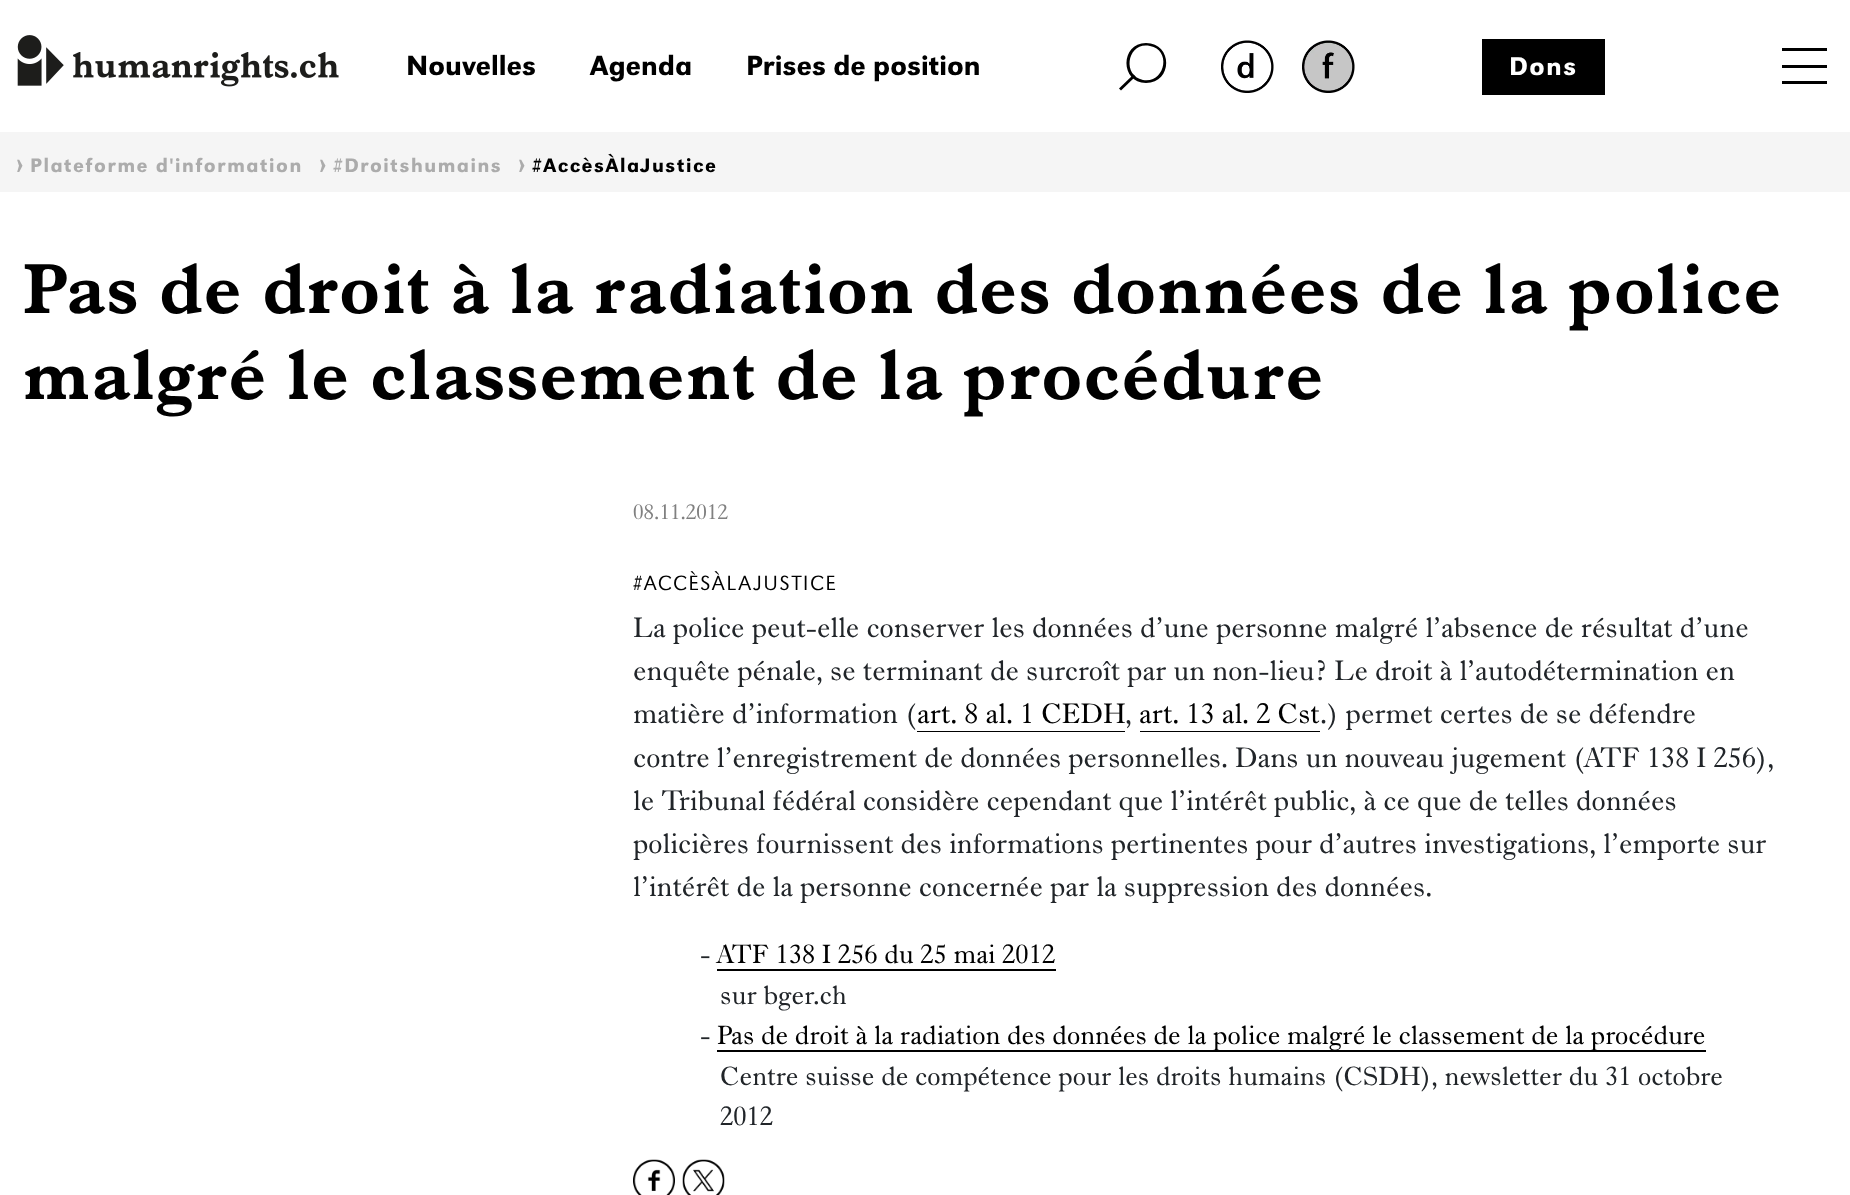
(async () => {
const canvas = document.querySelector("canvas")
canvas.width = 1850
canvas.height = 1195
const c = canvas.getContext("2d")
c.miterLimit = 4
c.fontKerning = "normal"
function T(s,x,y){c.fillText(s,x,y)}
function R(x,y,w,h){c.fillRect(x,y,w,h)}
async function I(src,x,y,w,h){const img=new Image();img.src=src;await img.decode();c.drawImage(img,x,y,w,h)}
let path
c.fillStyle="#fff"
R(0,0,1850,1195)
await I("1.png",17,35,322,52)
c.font="28.8px 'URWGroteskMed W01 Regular'"
c.fillStyle="#000"
T("Nouvelles",406,75)
T("Agenda",590,75)
T("Prises de position",746,75)
path = new Path2D("M1119 88.5l14.5-14l2 2l-14.5 14z")
c.fill(path,"evenodd")
path = new Path2D("M1146 83c-26 0-26-40 0-40c27 0 27 40 0 40zm-3-3c22 4 29-30 7-34c-22-5-29 29-7 34z")
c.fill(path)
await I("2.png",1221,40,53,53)
await I("3.png",1302,40,53,53)
R(1482,39,123,56)
c.letterSpacing="1.5px"
c.font="26.5px 'URWGroteskMed W01 Regular'"
c.fillStyle="#fff"
T("Dons",1509,75)
c.fillStyle="#000"
R(1782,81,45,3)
R(1782,48,45,3)
R(1782,65,45,3)
c.fillStyle="#f5f5f5"
R(0,132,1850,60)
c.letterSpacing="0px"
c.font="27px 'URWGroteskMed W01 Regular'"
c.fillStyle="#acacac"
T("›",16,172)
c.letterSpacing="1.5px"
c.font="20.4px 'URWGroteskMed W01 Regular'"
T("Plateforme d'information",30,172)
c.letterSpacing="0px"
c.font="27px 'URWGroteskMed W01 Regular'"
T("›",319,172)
c.letterSpacing="1.5px"
c.font="20.4px 'URWGroteskMed W01 Regular'"
T("#Droitshumains",333,172)
c.letterSpacing="0px"
c.font="27px 'URWGroteskMed W01 Regular'"
T("›",518,172)
c.letterSpacing="1.5px"
c.font="20.4px 'URWGroteskMed W01 Regular'"
c.fillStyle="#000"
T("#AccèsÀlaJustice",532,172)
c.letterSpacing="1.45px"
c.font="bold 72px 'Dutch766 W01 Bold'"
T("Pas de droit à la radiation des données de la police",23,313)
T("malgré le classement de la procédure",23,399)
c.letterSpacing="0px"
c.font="21.5px 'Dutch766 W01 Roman'"
c.fillStyle="#808080"
T("08.11.2012",633,519)
c.letterSpacing="1.5px"
c.font="300 21.5px 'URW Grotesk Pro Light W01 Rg'"
c.fillStyle="#000"
T("#ACCÈSÀLAJUSTICE",633,590)
c.letterSpacing="0px"
c.font="28.8px 'Dutch766 W01 Roman'"
c.fillStyle="#212529"
T("La police peut-elle conserver les données d’une personne malgré l’absence de résultat d’une",633,637)
T("enquête pénale, se terminant de surcroît par un non-lieu? Le droit à l’autodétermination en",633,680)
T("matière d’information (",633,723)
c.fillStyle="#000"
T("art. 8 al. 1 CEDH",917,723)
R(917,731,208,1)
c.fillStyle="#212529"
T(",",1125,723)
c.fillStyle="#000"
T("art. 13 al. 2 Cst",1139,723)
R(1140,731,180,1)
c.fillStyle="#212529"
T(".) permet certes de se défendre",1320,723)
T("contre l’enregistrement de données personnelles. Dans un nouveau jugement (ATF 138 I 256),",633,767)
T("le Tribunal fédéral considère cependant que l’intérêt public, à ce que de telles données",633,810)
T("policières fournissent des informations pertinentes pour d’autres investigations, l’emporte sur",633,853)
T("l’intérêt de la personne concernée par la suppression des données.",633,896)
c.font="27px 'Dutch766 W01 Roman'"
T("-",700,963)
c.fillStyle="#000"
T("ATF 138 I 256 du 25 mai 2012",717,963)
R(717,969,339,2)
c.fillStyle="#212529"
T("sur bger.ch",720,1004)
T("-",700,1044)
c.fillStyle="#000"
R(717,1050,989,2)
T("Pas de droit à la radiation des données de la police malgré le classement de la procédure",717,1044)
c.fillStyle="#212529"
T("Centre suisse de compétence pour les droits humains (CSDH), newsletter du 31 octobre",720,1085)
T("2012",720,1125)
await I("4.png",633,1159,42,36)
await I("5.png",682,1159,43,36)
})()
